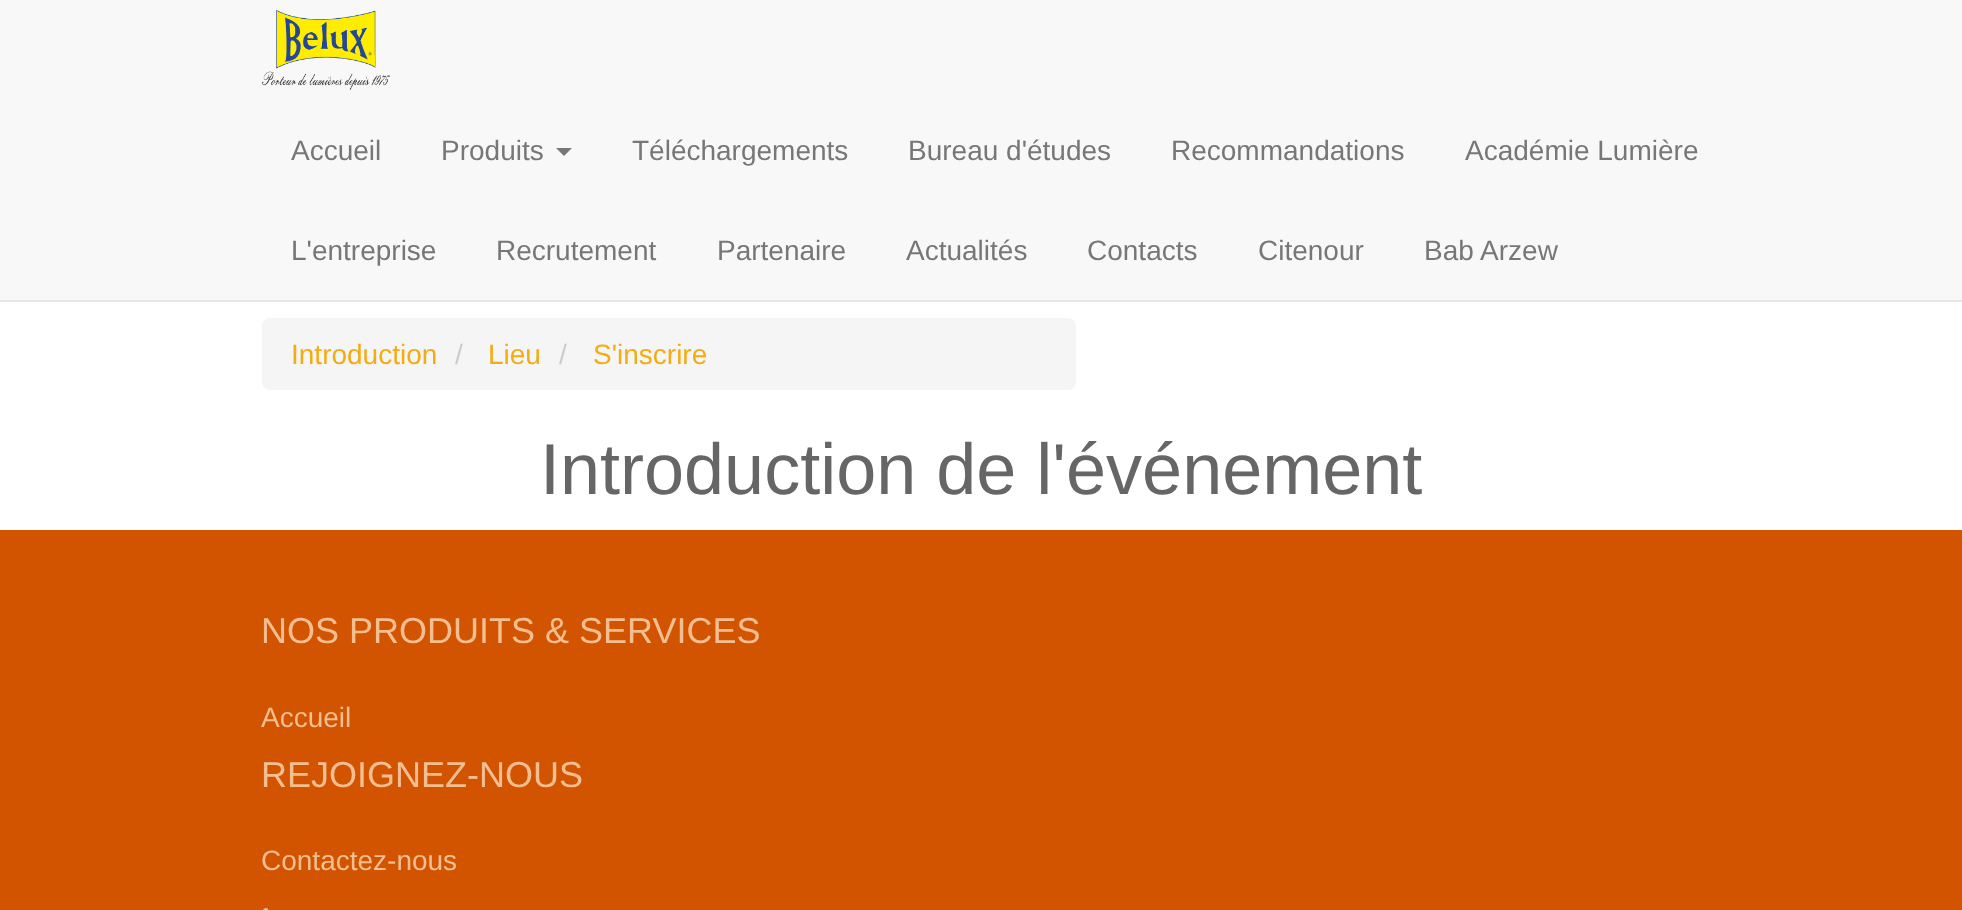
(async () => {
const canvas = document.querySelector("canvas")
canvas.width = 1962
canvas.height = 910
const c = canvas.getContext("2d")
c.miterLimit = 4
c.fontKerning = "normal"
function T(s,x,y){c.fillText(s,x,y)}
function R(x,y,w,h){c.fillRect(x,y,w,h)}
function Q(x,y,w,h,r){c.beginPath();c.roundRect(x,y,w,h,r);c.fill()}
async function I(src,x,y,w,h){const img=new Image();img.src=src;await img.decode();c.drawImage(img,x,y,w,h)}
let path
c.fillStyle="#fff"
R(0,0,1962,910)
c.fillStyle="#f8f8f8"
R(0,0,1962,300)
c.fillStyle="#e7e7e7"
R(0,300,1962,2)
await I("1.png",262,10,128,80)
c.font="28px Liberation Sans"
c.fillStyle="#777"
T("Accueil",291,160)
T("Produits",441,160)
path = new Path2D("M556 148h16l-8 8z")
c.fill(path)
T("Téléchargements",632,160)
T("Bureau d'études",908,160)
T("Recommandations",1171,160)
T("Académie Lumière",1465,160)
T("L'entreprise",291,260)
T("Recrutement",496,260)
T("Partenaire",717,260)
T("Actualités",906,260)
T("Contacts",1087,260)
T("Citenour",1258,260)
T("Bab Arzew",1424,260)
c.fillStyle="#f5f5f5"
Q(262,318,814,72,8)
c.fillStyle="#f3ac12"
T("Introduction",291,364)
c.fillStyle="#ccc"
T("/",455,364)
c.fillStyle="#f3ac12"
T("Lieu",488,364)
c.fillStyle="#ccc"
T("/",559,364)
c.fillStyle="#f3ac12"
T("S'inscrire",593,364)
c.font="72px Liberation Sans"
c.fillStyle="#666"
T("Introduction de l'événement",540,494)
c.fillStyle="#d35400"
R(0,530,1962,380)
c.font="36px Liberation Sans"
c.fillStyle="#f3bf91"
T("NOS PRODUITS & SERVICES",261,643)
c.font="28px Liberation Sans"
T("Accueil",261,727)
c.font="36px Liberation Sans"
T("REJOIGNEZ-NOUS",261,787)
c.font="28px Liberation Sans"
T("Contactez-nous",261,870)
await I("2.png",263,908,6,2)
})()
